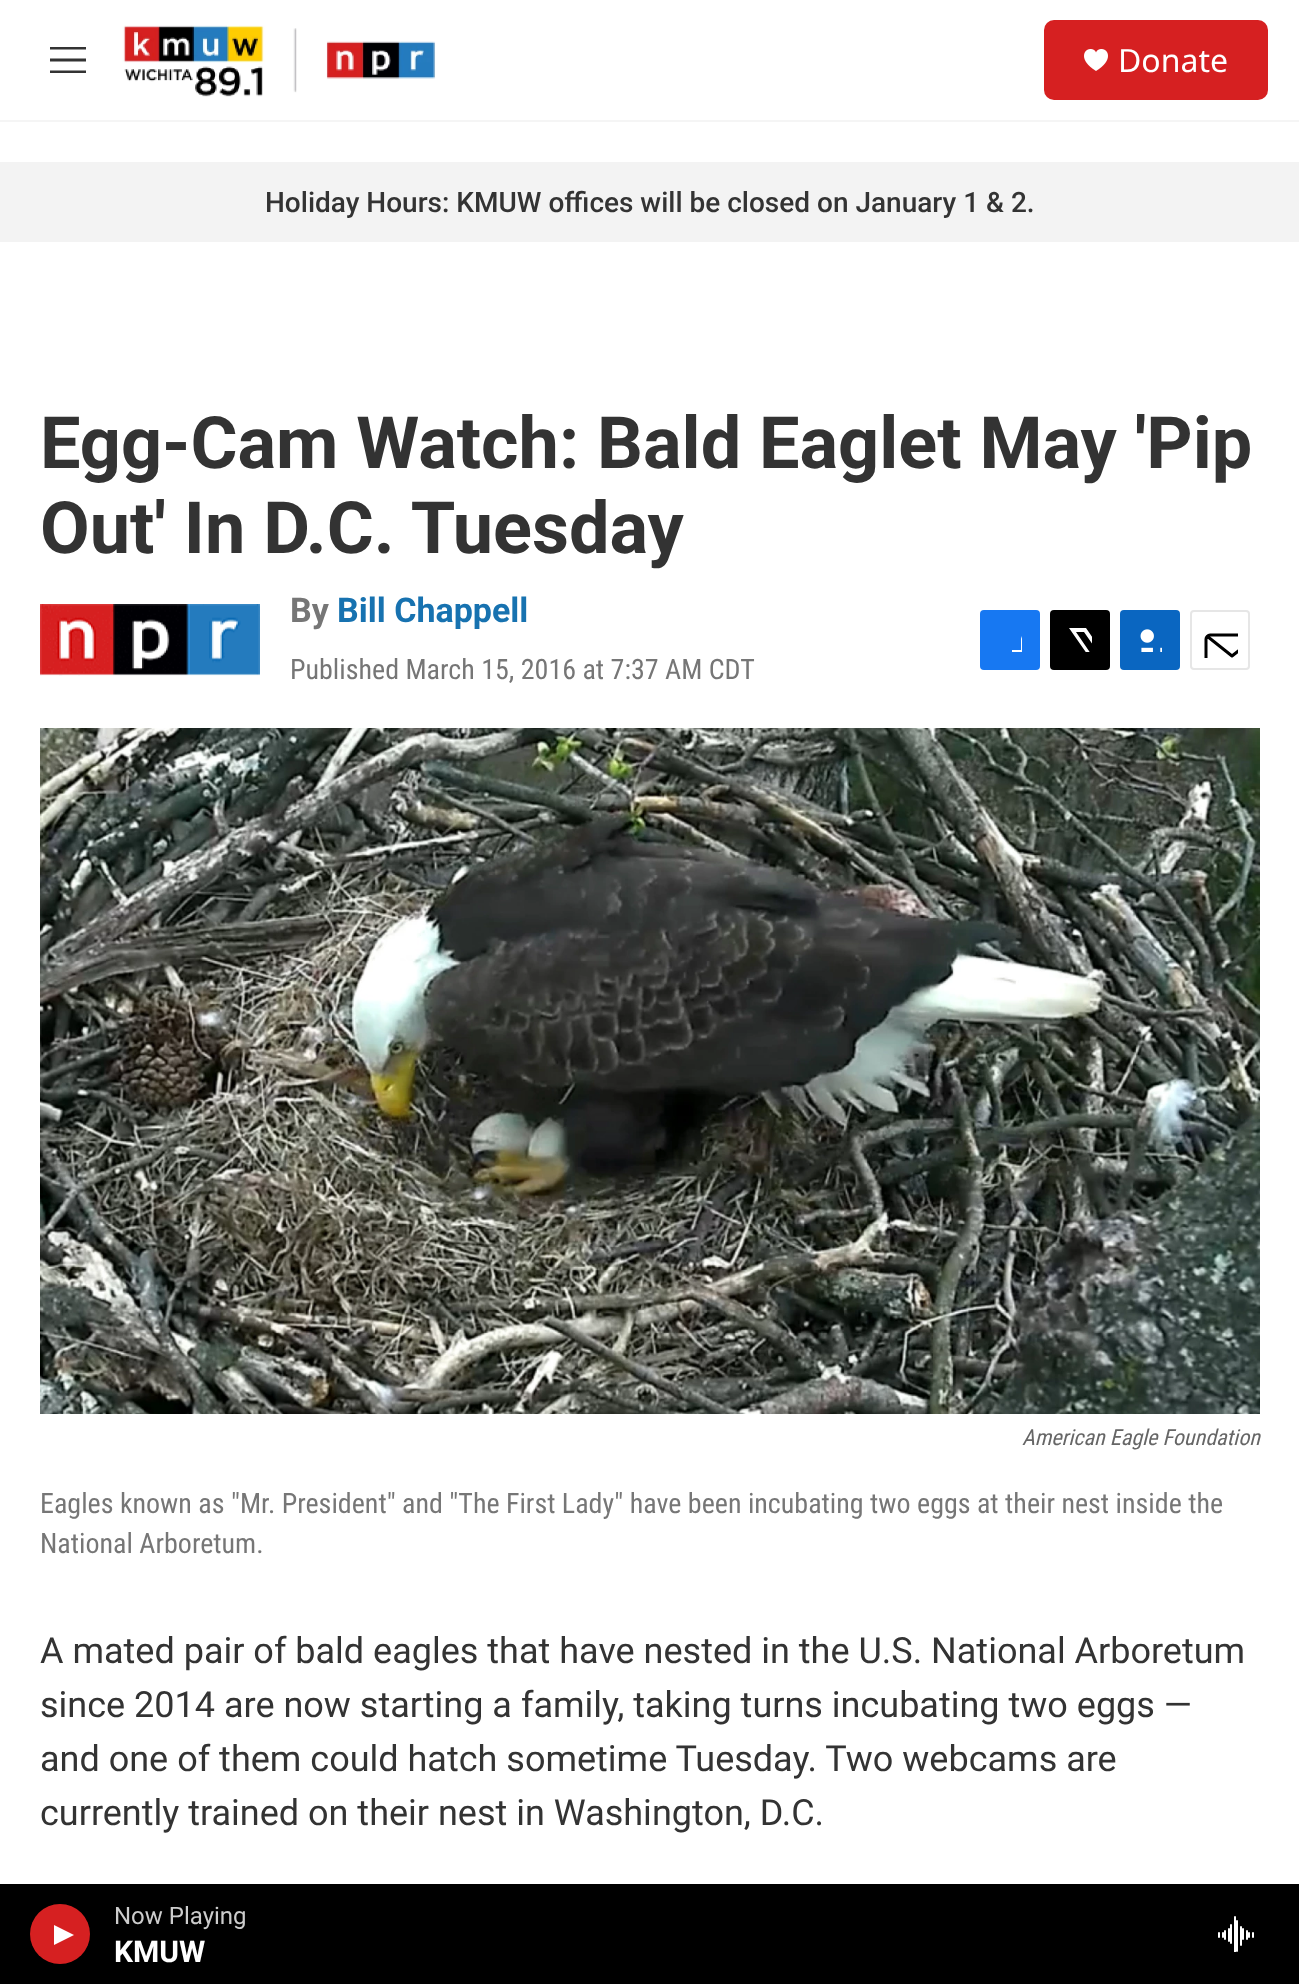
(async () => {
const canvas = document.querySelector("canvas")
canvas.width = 1299
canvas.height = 1984
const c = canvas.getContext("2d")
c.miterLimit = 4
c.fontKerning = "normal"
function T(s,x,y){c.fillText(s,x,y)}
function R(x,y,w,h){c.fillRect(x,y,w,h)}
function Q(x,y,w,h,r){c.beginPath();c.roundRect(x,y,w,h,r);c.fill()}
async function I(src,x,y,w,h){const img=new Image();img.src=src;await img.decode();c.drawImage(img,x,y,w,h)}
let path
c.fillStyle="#fff"
R(0,0,1299,1984)
c.fillStyle="#f5f5f5"
R(0,120,1299,2)
c.fillStyle="#333"
path = new Path2D("M50 61.5v-3h36v3zm0-12v-2.5h36v2.5zm0 23.5v-2.5h36v2.5z")
c.fill(path,"evenodd")
await I("1.png",122,25,314,72)
c.fillStyle="#d62021"
Q(1044,20,224,80,10)
await I("2.png",1084,49,24,22)
c.font="32px Noto Sans"
c.fillStyle="#fff"
T("Donate",1118,72)
c.fillStyle="#000"
R(0,1884,1299,100)
c.fillStyle="#d62021"
c.beginPath()
c.arc(60,1934,30,0,7)
c.fill()
c.fillStyle="#fff"
path = new Path2D("M54 1925l20 10l-20 10z")
c.fill(path)
c.font="24px Roboto"
c.fillStyle="#ccc"
T("Now Playing",114,1924)
c.font="bold 30px 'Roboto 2'"
c.fillStyle="#fff"
T("KMUW",114,1962)
await I("3.png",1218,1916,36,36)
c.fillStyle="#f3f3f3"
R(0,162,1299,80)
c.font="500 28px Roboto"
c.fillStyle="#333"
T("Holiday Hours: KMUW offices will be closed on January 1 & 2.",265,212)
c.font="bold 72px Roboto"
T("Egg-Cam Watch: Bald Eaglet May 'Pip",40,468)
T("Out' In D.C. Tuesday",40,553)
await I("4.png",40,604,220,72)
c.font="bold 34px Roboto"
c.fillStyle="#767676"
T("By",290,622)
c.fillStyle="#1772b0"
T("Bill Chappell",337,622)
c.font="28px Roboto Condensed"
c.fillStyle="#767676"
T("Published March 15, 2016 at 7:37 AM CDT",290,679)
c.fillStyle="#1778f2"
Q(980,610,60,60,4)
c.save()
c.beginPath()
c.rect(998,628,24,24)
c.clip()
c.fillStyle="#fff"
path = new Path2D("M1031 670h-10v-10h-9v-10h9v-11c2-9 11-11 19-10v9c-11 0-9 3-9 12h9v5l-1 5h-8z")
c.fill(path)
c.restore()
c.fillStyle="#000"
Q(1050,610,60,60,4)
c.save()
c.beginPath()
c.rect(1068,628,24,24)
c.clip()
c.fillStyle="#fff"
path = new Path2D("M1104 653l6 9c0 2 1 5-1 6l-25-36h-8l26 38h-5l-3-5l-4 5h-6l8-9l-23-33h17l15 22l9-10v6z")
c.fill(path)
c.restore()
c.fillStyle="#0a66c1"
Q(1120,610,60,60,4)
await I("5.png",1140,629,22,23)
c.beginPath()
c.roundRect(1191,611,58,58,3)
c.strokeStyle="#e6e6e6"
c.lineWidth=2
c.stroke()
c.save()
c.beginPath()
c.rect(1202,622,36,36)
c.clip()
path = new Path2D("M1258 666c0 2-2 3.5-4 3.5h-44c-2 0-4-1.5-4-3.5v-27c0-2 2-4 4-4h44c2 0 4 2 4 4zm-1.5-29.5l-24.5 19.5l-24.5-19.5")
c.strokeStyle="#000"
c.lineWidth=3
c.lineCap="round"
c.lineJoin="round"
c.stroke(path)
c.restore()
await I("6.png",40,728,1220,686)
c.font="italic 22px Roboto Condensed"
c.fillStyle="#666"
T("American Eagle Foundation",1022,1445)
c.font="28px Roboto Condensed"
c.fillStyle="#767676"
T("Eagles known as \"Mr. President\" and \"The First Lady\" have been incubating two eggs at their nest inside the",40,1513)
T("National Arboretum.",40,1553)
c.font="36px Roboto"
c.fillStyle="#333"
T("A mated pair of bald eagles that have nested in the U.S. National Arboretum",40,1663)
T("since 2014 are now starting a family, taking turns incubating two eggs —",40,1717)
T("and one of them could hatch sometime Tuesday. Two webcams are",40,1771)
T("currently trained on their nest in Washington, D.C.",40,1825)
})()
